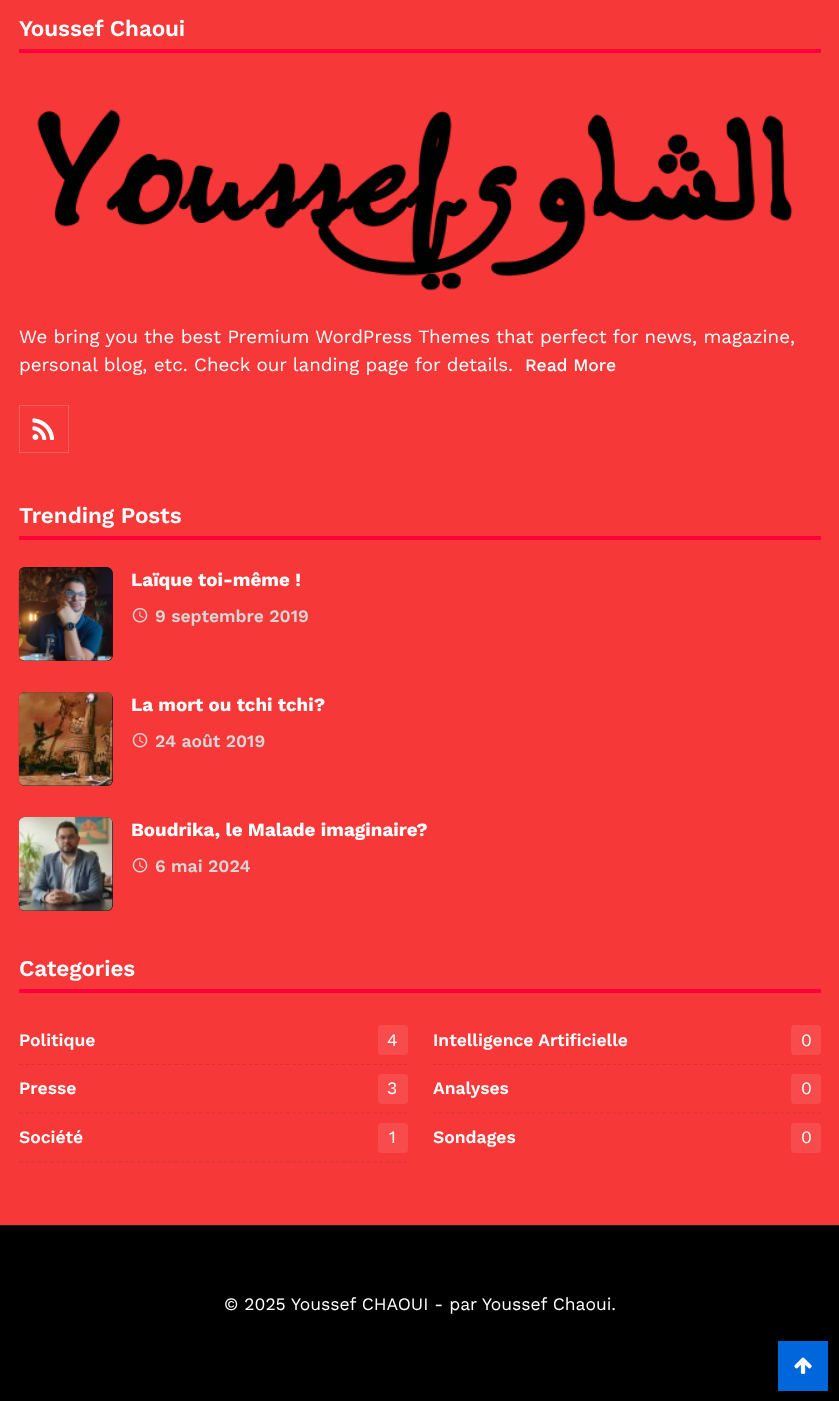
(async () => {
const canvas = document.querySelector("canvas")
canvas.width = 839
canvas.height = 1401
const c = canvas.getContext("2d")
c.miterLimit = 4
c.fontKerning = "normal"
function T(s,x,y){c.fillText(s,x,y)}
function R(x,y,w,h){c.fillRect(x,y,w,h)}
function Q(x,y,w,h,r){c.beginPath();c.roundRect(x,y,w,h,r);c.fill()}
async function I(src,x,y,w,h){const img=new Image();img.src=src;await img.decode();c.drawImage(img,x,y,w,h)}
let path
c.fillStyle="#f73838"
R(0,0,839,1401)
c.letterSpacing="-0.1px"
c.font="600 22.5px Work Sans"
c.fillStyle="#fff"
T("Youssef Chaoui",19,36)
c.fillStyle="#ff003c"
R(19,49,802,4)
await I("1.png",37,109,756,182)
c.letterSpacing="0px"
c.font="18.75px Work Sans"
c.fillStyle="#fff"
T("We bring you the best Premium WordPress Themes that perfect for news, magazine,",19,343)
T("personal blog, etc. Check our landing page for details.",19,371)
c.font="500 17.5px Work Sans"
T("Read More",525,371)
c.strokeStyle="#f95e5e"
c.strokeRect(19.5,405.5,49,47)
await I("2.png",32,418,23,22)
c.letterSpacing="-0.1px"
c.font="600 22.5px Work Sans"
T("Trending Posts",19,523)
c.fillStyle="#ff003c"
R(19,536,802,4)
c.fillStyle="#131313"
Q(19,568,94,93,6)
await I("3.png",18,567,95,94)
await I("4.png",18,567,95,94)
c.letterSpacing="0px"
c.font="bold 18.75px Work Sans"
c.fillStyle="#fff"
T("Laïque toi-même !",131,586)
await I("5.png",132,607,16,16)
c.font="600 17.5px Work Sans"
c.fillStyle="#d7d7d7"
T("9 septembre 2019",155,622)
c.fillStyle="#131313"
Q(19,693,94,93,6)
await I("6.png",18,692,95,94)
await I("7.png",18,692,95,94)
c.font="bold 18.75px Work Sans"
c.fillStyle="#fff"
T("La mort ou tchi tchi?",131,711)
await I("5.png",132,732,16,16)
c.font="600 17.5px Work Sans"
c.fillStyle="#d7d7d7"
T("24 août 2019",155,747)
c.fillStyle="#131313"
Q(19,818,94,93,6)
await I("8.png",18,817,95,94)
await I("9.png",18,817,95,94)
c.font="bold 18.75px Work Sans"
c.fillStyle="#fff"
T("Boudrika, le Malade imaginaire?",131,836)
await I("5.png",132,857,16,16)
c.font="600 17.5px Work Sans"
c.fillStyle="#d7d7d7"
T("6 mai 2024",155,872)
c.letterSpacing="-0.1px"
c.font="600 22.5px Work Sans"
c.fillStyle="#fff"
T("Categories",19,976)
c.fillStyle="#ff003c"
R(19,989,802,4)
path = new Path2D("M19 1064.5h388.5")
c.strokeStyle="#de3232"
c.lineWidth=1.2
c.setLineDash([3.75,2.46])
c.stroke(path)
c.letterSpacing="0px"
c.font="600 17.5px Work Sans"
c.fillStyle="#fff"
T("Politique",19,1046)
c.fillStyle="#f84c4c"
Q(378,1025,30,30,4)
c.font="17.5px Work Sans"
c.fillStyle="#fff"
T("4",387,1046)
path = new Path2D("M432.5 1064.5h388.5")
c.stroke(path)
c.font="600 17.5px Work Sans"
T("Intelligence Artificielle",433,1046)
c.fillStyle="#f84c4c"
Q(791,1025,30,30,4)
c.font="17.5px Work Sans"
c.fillStyle="#fff"
T("0",801,1046)
path = new Path2D("M19 1113h388.5")
c.stroke(path)
c.font="600 17.5px Work Sans"
T("Presse",19,1094)
c.fillStyle="#f84c4c"
Q(378,1074,30,30,4)
c.font="17.5px Work Sans"
c.fillStyle="#fff"
T("3",387,1094)
path = new Path2D("M432.5 1113h388.5")
c.stroke(path)
c.font="600 17.5px Work Sans"
T("Analyses",433,1094)
c.fillStyle="#f84c4c"
Q(791,1074,30,30,4)
c.font="17.5px Work Sans"
c.fillStyle="#fff"
T("0",801,1094)
path = new Path2D("M19 1162h388.5")
c.stroke(path)
c.font="600 17.5px Work Sans"
T("Société",19,1143)
c.fillStyle="#f84c4c"
Q(378,1123,30,30,4)
c.font="17.5px Work Sans"
c.fillStyle="#fff"
T("1",389,1143)
c.font="600 17.5px Work Sans"
T("Sondages",433,1143)
c.fillStyle="#f84c4c"
Q(791,1123,30,30,4)
c.font="17.5px Work Sans"
c.fillStyle="#fff"
T("0",801,1143)
c.fillStyle="#000"
R(0,1226,839,175)
c.fillStyle="#1a1a1a"
R(0,1225,839,1)
c.fillStyle="#fff"
T("© 2025",224,1310)
T("Youssef CHAOUI - par",291,1310)
T("Youssef Chaoui.",482,1310)
c.fillStyle="#0066db"
R(778,1341,50,50)
await I("10.png",794,1357,18,17)
})()
